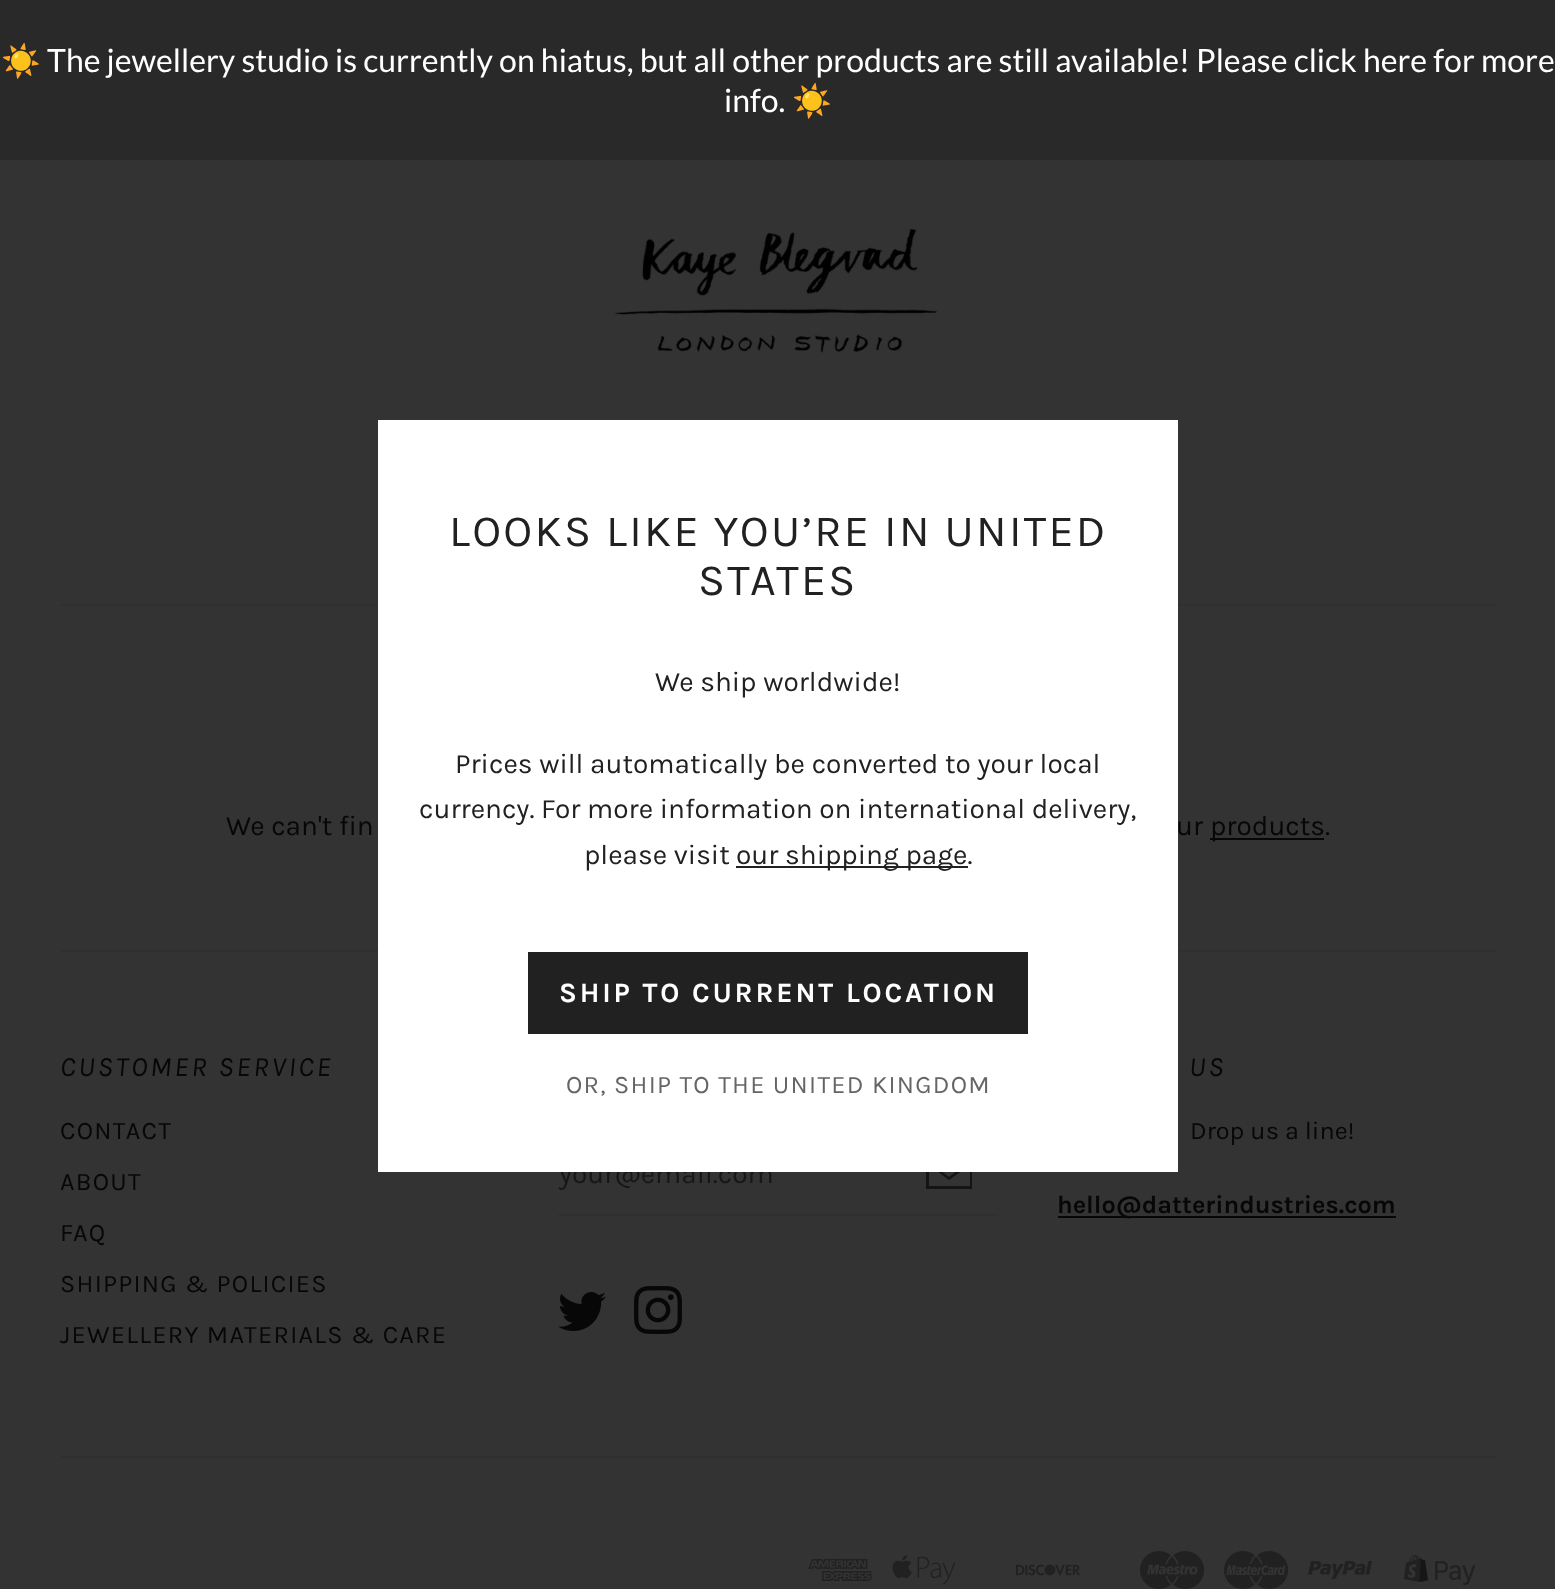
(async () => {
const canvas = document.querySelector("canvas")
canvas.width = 1555
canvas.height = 1589
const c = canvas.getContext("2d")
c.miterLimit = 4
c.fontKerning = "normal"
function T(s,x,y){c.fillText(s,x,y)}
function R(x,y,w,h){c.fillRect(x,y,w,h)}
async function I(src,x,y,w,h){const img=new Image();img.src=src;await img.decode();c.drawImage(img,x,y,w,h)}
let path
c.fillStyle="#333"
R(0,0,1555,1589)
c.fillStyle="#2a2929"
R(0,0,1555,160)
c.font="32px Noto Color Emoji"
c.fillStyle="#fff"
T("☀️",1,72)
c.font="32px Lato"
T("The jewellery studio is currently on hiatus, but all other products are still available! Please click here for more",47,72)
T("info.",724,112)
c.font="32px Noto Color Emoji"
T("☀️",792,112)
c.fillStyle="#303030"
R(60,604,1436,2)
await I("1.png",612,228,326,126)
R(60,950,1436,2)
c.font="28px Karla"
c.fillStyle="#171717"
T("your@email.com",559,1183)
c.fillStyle="#141414"
path = new Path2D("M972 1159h-46v30h46zm-2 2l-21 16l-21-16zm0 4v21h-41v-21l20 15z")
c.fill(path)
c.fillStyle="#fff"
R(378,420,800,752)
c.letterSpacing="2.25px"
c.font="44.75px Karla"
c.fillStyle="#212121"
T("LOOKS LIKE YOU’RE IN UNITED",449,546)
T("STATES",698,595)
c.letterSpacing="0px"
c.font="28px Karla"
T("We ship worldwide!",655,691)
T("Prices will automatically be converted to your local",455,773)
T("currency. For more information on international delivery,",419,818)
T("please visit",584,864)
R(736,866,232,2)
T("our shipping page.",736,864)
R(528,952,500,82)
c.letterSpacing="2.8px"
c.font="bold 28px Karla"
c.fillStyle="#fff"
T("SHIP TO CURRENT LOCATION",559,1002)
c.letterSpacing="1.25px"
c.font="25.25px Karla"
c.fillStyle="#656565"
T("OR, SHIP TO THE UNITED KINGDOM",566,1093)
c.letterSpacing="2.8px"
c.font="italic 28px Karla"
c.fillStyle="#070707"
T("CUSTOMER SERVICE",60,1076)
c.letterSpacing="1.25px"
c.font="25.25px Karla"
T("CONTACT",60,1139)
T("ABOUT",60,1190)
T("FAQ",60,1241)
T("SHIPPING & POLICIES",60,1292)
T("JEWELLERY MATERIALS & CARE",60,1343)
c.fillStyle="#303030"
R(558,1214,440,2)
await I("2.png",558,1292,48,39)
await I("3.png",634,1286,48,48)
c.letterSpacing="2.8px"
c.font="italic 28px Karla"
c.fillStyle="#070707"
T("US",1189,1076)
c.letterSpacing="0px"
c.font="25.25px Karla"
T("Drop us a line!",1190,1139)
R(1058,1216,338,2)
c.font="bold 25.25px Karla"
T("hello@datterindustries.com",1057,1213)
c.fillStyle="#303030"
R(60,1456,1436,2)
await I("4.png",808,1559,64,22)
await I("5.png",892,1555,64,30)
await I("6.png",1016,1564,64,12)
await I("7.png",1140,1551,64,38)
await I("8.png",1224,1551,64,38)
await I("9.png",1308,1561,64,18)
await I("10.png",1404,1555,72,30)
c.font="28px Karla"
c.fillStyle="#070707"
T("We can't fin",226,835)
T("ur",1176,835)
R(1210,838,114,2)
T("products.",1210,835)
})()
